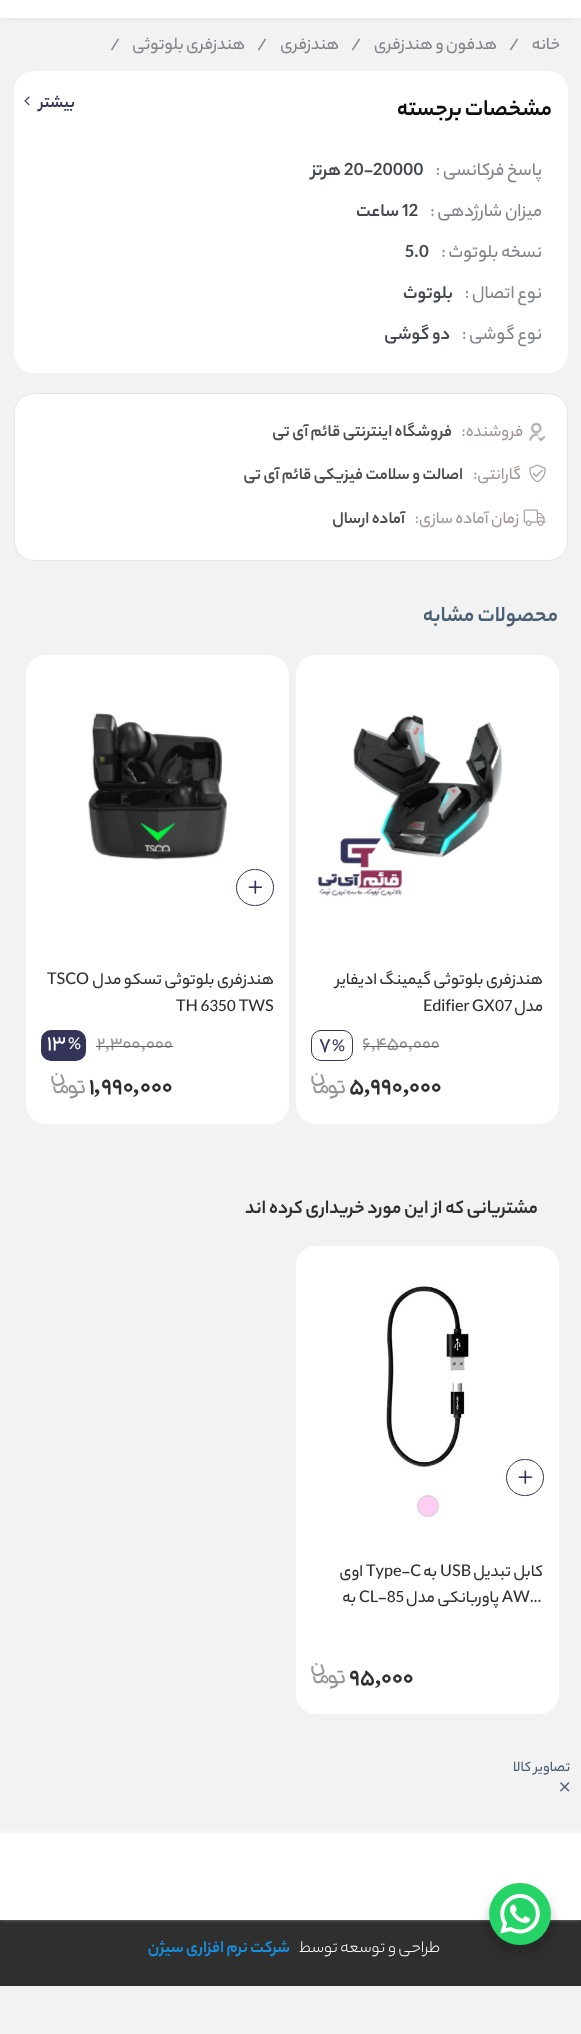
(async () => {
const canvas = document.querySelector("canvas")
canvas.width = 581
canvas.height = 2034
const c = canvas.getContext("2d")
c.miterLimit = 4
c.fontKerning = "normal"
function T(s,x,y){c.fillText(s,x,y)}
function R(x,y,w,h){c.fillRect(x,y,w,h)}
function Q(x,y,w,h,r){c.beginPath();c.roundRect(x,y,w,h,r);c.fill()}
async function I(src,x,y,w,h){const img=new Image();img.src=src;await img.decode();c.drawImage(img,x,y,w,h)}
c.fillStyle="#f2f2f2"
R(0,0,581,2034)
c.fillStyle="#0000001a"
c.filter="blur(3px)"
c.beginPath()
c.rect(6,13,569,5)
c.fill()
c.filter="none"
c.fillStyle="#fff"
R(0,0,581,18)
c.direction="rtl"
c.font="500 18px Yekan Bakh"
c.fillStyle="#81858b"
T("خانه",560,49)
c.direction="ltr"
T("/",509,49)
c.direction="rtl"
T("هدفون و هندزفری",497,49)
c.direction="ltr"
T("/",351,49)
c.direction="rtl"
T("هندزفری",339,49)
c.direction="ltr"
T("/",257,49)
c.direction="rtl"
T("هندزفری بلوتوثی",245,49)
c.direction="ltr"
T("/",110,49)
c.fillStyle="#fff"
Q(14,71,554,302,20)
c.direction="rtl"
c.font="bold 24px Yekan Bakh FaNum"
c.fillStyle="#0c0c0c"
T("مشخصات",552,115)
T("برجسته",462,115)
c.font="bold 17.5px Yekan Bakh FaNum"
c.fillStyle="#34345a"
T("بیشتر",75,107)
await I("1.png",24,96,6,10)
c.font="500 19px Yekan Bakh"
c.fillStyle="#81858b"
T("پاسخ فرکانسی :",542,175)
c.direction="ltr"
c.font="bold 19px Yekan Bakh"
c.fillStyle="#424750"
T("20-20000",344,175)
c.direction="rtl"
T("هرتز",341,175)
c.font="500 19px Yekan Bakh"
c.fillStyle="#81858b"
T("میزان شارژدهی :",542,216)
c.direction="ltr"
c.font="bold 19px Yekan Bakh"
c.fillStyle="#424750"
T("12",402,216)
c.direction="rtl"
T("ساعت",399,216)
c.font="500 19px Yekan Bakh"
c.fillStyle="#81858b"
T("نسخه بلوتوث :",542,257)
c.direction="ltr"
c.font="bold 19px Yekan Bakh"
c.fillStyle="#424750"
T("5.0",405,257)
c.direction="rtl"
c.font="500 19px Yekan Bakh"
c.fillStyle="#81858b"
T("نوع اتصال :",542,298)
c.font="bold 19px Yekan Bakh"
c.fillStyle="#424750"
T("بلوتوث",453,298)
c.font="500 19px Yekan Bakh"
c.fillStyle="#81858b"
T("نوع گوشی :",542,339)
c.font="bold 19px Yekan Bakh"
c.fillStyle="#424750"
T("دو گوشی",450,339)
c.fillStyle="#fff"
c.beginPath()
c.roundRect(14.5,393.5,553,167,19.5)
c.fill()
c.strokeStyle="#e6e6e6"
c.stroke()
await I("2.png",528,422,18,20)
c.font="500 17.5px Yekan Bakh"
c.fillStyle="#a39595"
T("فروشنده:",523,436)
c.font="bold 17.5px Yekan Bakh"
c.fillStyle="#4e4e4e"
T("فروشگاه اینترنتی قائم آی تی",452,436)
await I("3.png",529,464,17,19)
c.font="500 17.5px Yekan Bakh"
c.fillStyle="#a39595"
T("گارانتی:",521,479)
c.font="bold 17.5px Yekan Bakh"
c.fillStyle="#4e4e4e"
T("اصالت و سلامت فیزیکی قائم آی تی",463,479)
await I("4.png",523,509,23,17)
c.font="500 17.5px Yekan Bakh"
c.fillStyle="#a39595"
T("زمان آماده سازی:",519,523)
c.font="bold 17.5px Yekan Bakh"
c.fillStyle="#4e4e4e"
T("آماده ارسال",405,523)
c.font="bold 22.5px Yekan Bakh"
c.fillStyle="#4a5f73"
T("محصولات مشابه",558,621)
c.fillStyle="#fff"
Q(296,655,263,469,20)
await I("5.png",317,715,185,182)
c.font="500 17.5px Yekan Bakh"
c.fillStyle="#2f2f2f"
T("هندزفری بلوتوثی گیمینگ ادیفایر",543,984)
T("مدل",543,1011)
c.direction="ltr"
T("Edifier GX07",423,1011)
c.font="500 20px Yekan Bakh FaNum"
c.fillStyle="#979797"
T("000",413,1049)
T("450",376,1049)
T("6",362,1049)
c.font="20px Liberation Serif"
T(",",408,1049)
T(",",371,1049)
c.fillStyle="#5e5e5e"
R(363,1046,76,1)
c.beginPath()
c.roundRect(311.5,1030.5,41,30,9.5)
c.strokeStyle="#34345a"
c.stroke()
c.font="500 17.5px Yekan Bakh"
c.fillStyle="#34345a"
T("%",332,1051)
c.font="500 22.5px Yekan Bakh FaNum"
T("7",319,1051)
c.font="bold 25px Yekan Bakh FaNum"
c.fillStyle="#2f2f2f"
T("000",409,1093)
T("990",370,1093)
T("5",349,1093)
await I("6.png",311,1073,34,26)
c.font="bold 25px Liberation Serif"
T(",",403,1093)
T(",",364,1093)
c.fillStyle="#fff"
Q(26,655,263,469,20)
await I("7.png",88,713,139,147)
c.beginPath()
c.roundRect(236.5,869.5,37,36,18)
c.stroke()
await I("8.png",248,880,14,14)
c.direction="rtl"
c.font="500 17.5px Yekan Bakh"
c.fillStyle="#2f2f2f"
T("هندزفری بلوتوثی تسکو مدل",274,984)
c.direction="ltr"
T("TSCO",47,984)
T("TH 6350 TWS",176,1011)
c.font="500 20px Yekan Bakh FaNum"
c.fillStyle="#979797"
T("000",146,1049)
T("300",110,1049)
T("2",97,1049)
c.font="20px Liberation Serif"
T(",",141,1049)
T(",",105,1049)
c.fillStyle="#5e5e5e"
R(96,1046,77,1)
c.fillStyle="#34345a"
Q(41,1030,45,31,10)
c.font="500 17.5px Yekan Bakh"
c.fillStyle="#fff"
T("%",68,1049)
c.font="500 22.5px Yekan Bakh FaNum"
T("13",47,1049)
c.font="bold 25px Yekan Bakh FaNum"
c.fillStyle="#2f2f2f"
T("000",140,1093)
T("990",101,1093)
T("1",89,1093)
await I("6.png",51,1073,34,26)
c.font="bold 25px Liberation Serif"
T(",",133,1093)
T(",",94,1093)
c.direction="rtl"
c.font="bold 20px Yekan Bakh FaNum"
T("مشتریانی که از این مورد خریداری کرده اند",538,1213)
c.fillStyle="#fff"
Q(296,1246,263,468,20)
await I("9.png",386,1283,83,188)
c.beginPath()
c.roundRect(506.5,1459.5,37,36,18)
c.stroke()
await I("8.png",518,1470,14,14)
c.fillStyle="#888"
c.filter="blur(1px)"
c.beginPath()
c.roundRect(418,1496,20,20,10)
c.fill()
c.filter="none"
c.fillStyle="#fecdf1"
c.beginPath()
c.arc(428,1506,10,0,7)
c.fill()
c.font="500 17.5px Yekan Bakh"
c.fillStyle="#2f2f2f"
T("کابل تبدیل",543,1576)
c.direction="ltr"
T("USB",440,1576)
c.direction="rtl"
T("به",437,1576)
c.direction="ltr"
T("Type-C",366,1576)
c.direction="rtl"
T("اوی",363,1576)
c.direction="ltr"
T("AW…",502,1602)
c.direction="rtl"
T("پاوربانکی مدل",499,1602)
c.direction="ltr"
T("CL-85",359,1602)
c.direction="rtl"
T("به",356,1602)
c.direction="ltr"
c.font="bold 25px Yekan Bakh FaNum"
T("000",381,1684)
T("95",349,1684)
await I("6.png",311,1663,34,26)
c.font="bold 25px Liberation Serif"
T(",",375,1684)
c.direction="rtl"
c.font="500 15px Yekan Bakh FaNum"
c.fillStyle="#4a5f73"
T("تصاویر کالا",570,1771)
await I("10.png",560,1782,10,10)
c.fillStyle="#2f2f2f"
R(0,1920,581,66)
c.fillStyle="#f8f8f8f7"
c.filter="blur(2.5px)"
c.beginPath()
c.rect(0,1830,581,88)
c.fill()
c.filter="none"
c.fillStyle="#fff"
R(0,1833,581,87)
c.fillStyle="#00000024"
c.filter="blur(5px)"
c.beginPath()
c.roundRect(486,1888,68,67,33.5)
c.fill()
c.filter="none"
c.fillStyle="#25d366"
c.beginPath()
c.arc(520,1914,31,0,7)
c.fill()
await I("11.png",500,1894,40,40)
c.font="300 17.5px Yekan Bakh"
c.fillStyle="#fff"
T("طراحی و توسعه توسط",440,1952)
c.font="bold 17.5px Yekan Bakh"
c.fillStyle="#168fdf"
T("شرکت نرم افزاری سیژن",290,1952)
})()
